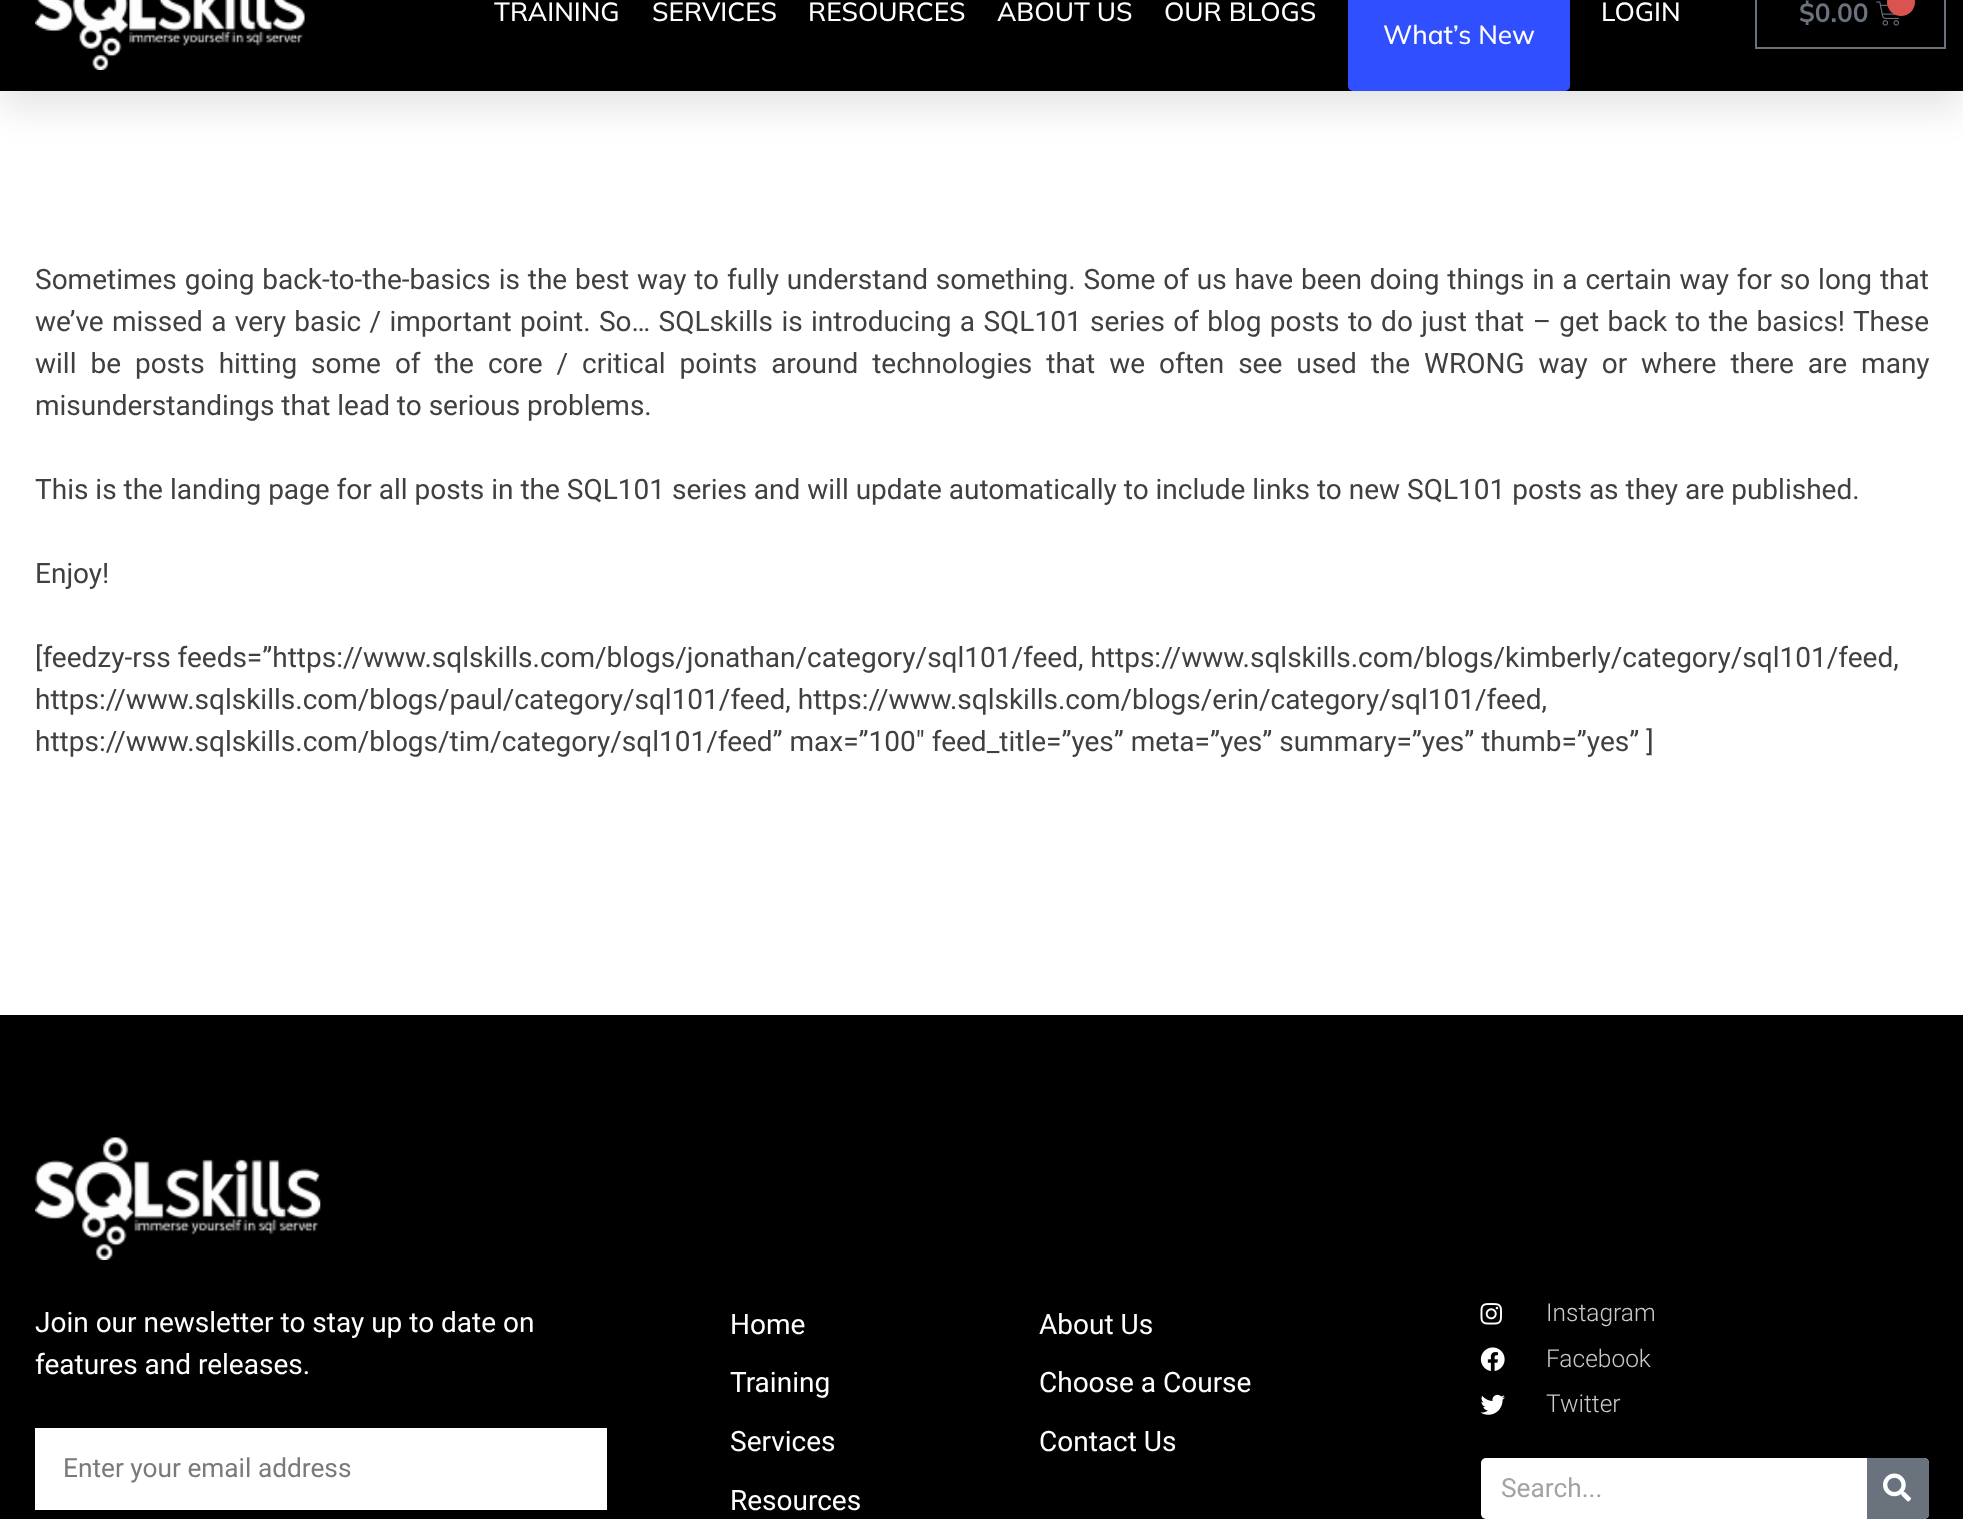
(async () => {
const canvas = document.querySelector("canvas")
canvas.width = 1963
canvas.height = 1519
const c = canvas.getContext("2d")
c.miterLimit = 4
c.fontKerning = "normal"
function T(s,x,y){c.fillText(s,x,y)}
function R(x,y,w,h){c.fillRect(x,y,w,h)}
function Q(x,y,w,h,r){c.beginPath();c.roundRect(x,y,w,h,r);c.fill()}
async function I(src,x,y,w,h){const img=new Image();img.src=src;await img.decode();c.drawImage(img,x,y,w,h)}
c.fillStyle="#fff"
R(0,0,1963,1519)
c.fillStyle="#0000001a"
c.filter="blur(17.5px)"
c.beginPath()
c.rect(0,-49,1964,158)
c.fill()
c.filter="none"
c.fillStyle="#000"
R(0,0,1963,91)
await I("1.png",35,0,270,70)
c.font="500 26.25px Mulish"
c.fillStyle="#fff"
T("TRAINING",494,21)
T("SERVICES",652,21)
T("RESOURCES",808,21)
T("ABOUT US",997,21)
T("OUR BLOGS",1164,21)
T("LOGIN",1601,21)
c.fillStyle="#304ffe"
Q(1348,-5,222,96,5)
c.fillStyle="#fff"
T("What’s New",1383,44)
c.strokeStyle="#69727d"
c.lineWidth=2
c.strokeRect(1756,-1,189,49)
c.font="bold 26.25px Mulish"
c.fillStyle="#69727d"
T("$0.00",1799,22)
await I("2.png",1876,1,23,25)
c.fillStyle="#d9534f"
c.beginPath()
c.arc(1901,2,14,0,7)
c.fill()
c.wordSpacing="0.9px"
c.font="28px Roboto"
c.fillStyle="#404040"
T("Sometimes going back-to-the-basics is the best way to fully understand something. Some of us have been doing things in a certain way for so long that",35,289)
c.wordSpacing="1.4px"
T("we’ve missed a very basic / important point. So… SQLskills is introducing a SQL101 series of blog posts to do just that – get back to the basics! These",35,331)
c.wordSpacing="7px"
T("will be posts hitting some of the core / critical points around technologies that we often see used the WRONG way or where there are many",35,373)
c.wordSpacing="0px"
T("misunderstandings that lead to serious problems.",35,415)
T("This is the landing page for all posts in the SQL101 series and will update automatically to include links to new SQL101 posts as they are published.",35,499)
T("Enjoy!",35,583)
T("[feedzy-rss feeds=”https://www.sqlskills.com/blogs/jonathan/category/sql101/feed, https://www.sqlskills.com/blogs/kimberly/category/sql101/feed,",35,667)
T("https://www.sqlskills.com/blogs/paul/category/sql101/feed, https://www.sqlskills.com/blogs/erin/category/sql101/feed,",35,709)
T("https://www.sqlskills.com/blogs/tim/category/sql101/feed” max=”100″ feed_title=”yes” meta=”yes” summary=”yes” thumb=”yes” ]",35,751)
c.fillStyle="#000"
R(0,1015,1963,504)
await I("3.png",35,1137,286,123)
c.fillStyle="#fff"
T("Join our newsletter to stay up to date on",35,1332)
T("features and releases.",35,1374)
R(35,1428,572,82)
c.font="26.25px Roboto"
c.fillStyle="#797a7c"
T("Enter your email address",63,1477)
c.font="28px Roboto"
c.fillStyle="#fff"
T("Home",730,1334)
T("Training",730,1392)
T("Services",730,1451)
T("Resources",730,1510)
T("About Us",1039,1334)
T("Choose a Course",1039,1392)
T("Contact Us",1039,1451)
await I("4.png",1480,1303,22,22)
c.font="300 24.5px Roboto"
c.fillStyle="#c9c9c9"
T("Instagram",1546,1321)
await I("5.png",1480,1347,25,24)
T("Facebook",1546,1367)
await I("6.png",1480,1394,25,21)
T("Twitter",1546,1412)
c.fillStyle="#fff"
Q(1481,1458,448,61,5)
c.font="26.25px Roboto"
c.fillStyle="#a3a3a3"
T("Search...",1501,1497)
c.fillStyle="#69727d"
c.beginPath()
c.roundRect(1867,1458,62,61,[0,5,5,0])
c.fill()
await I("7.png",1883,1473,28,29)
})()
